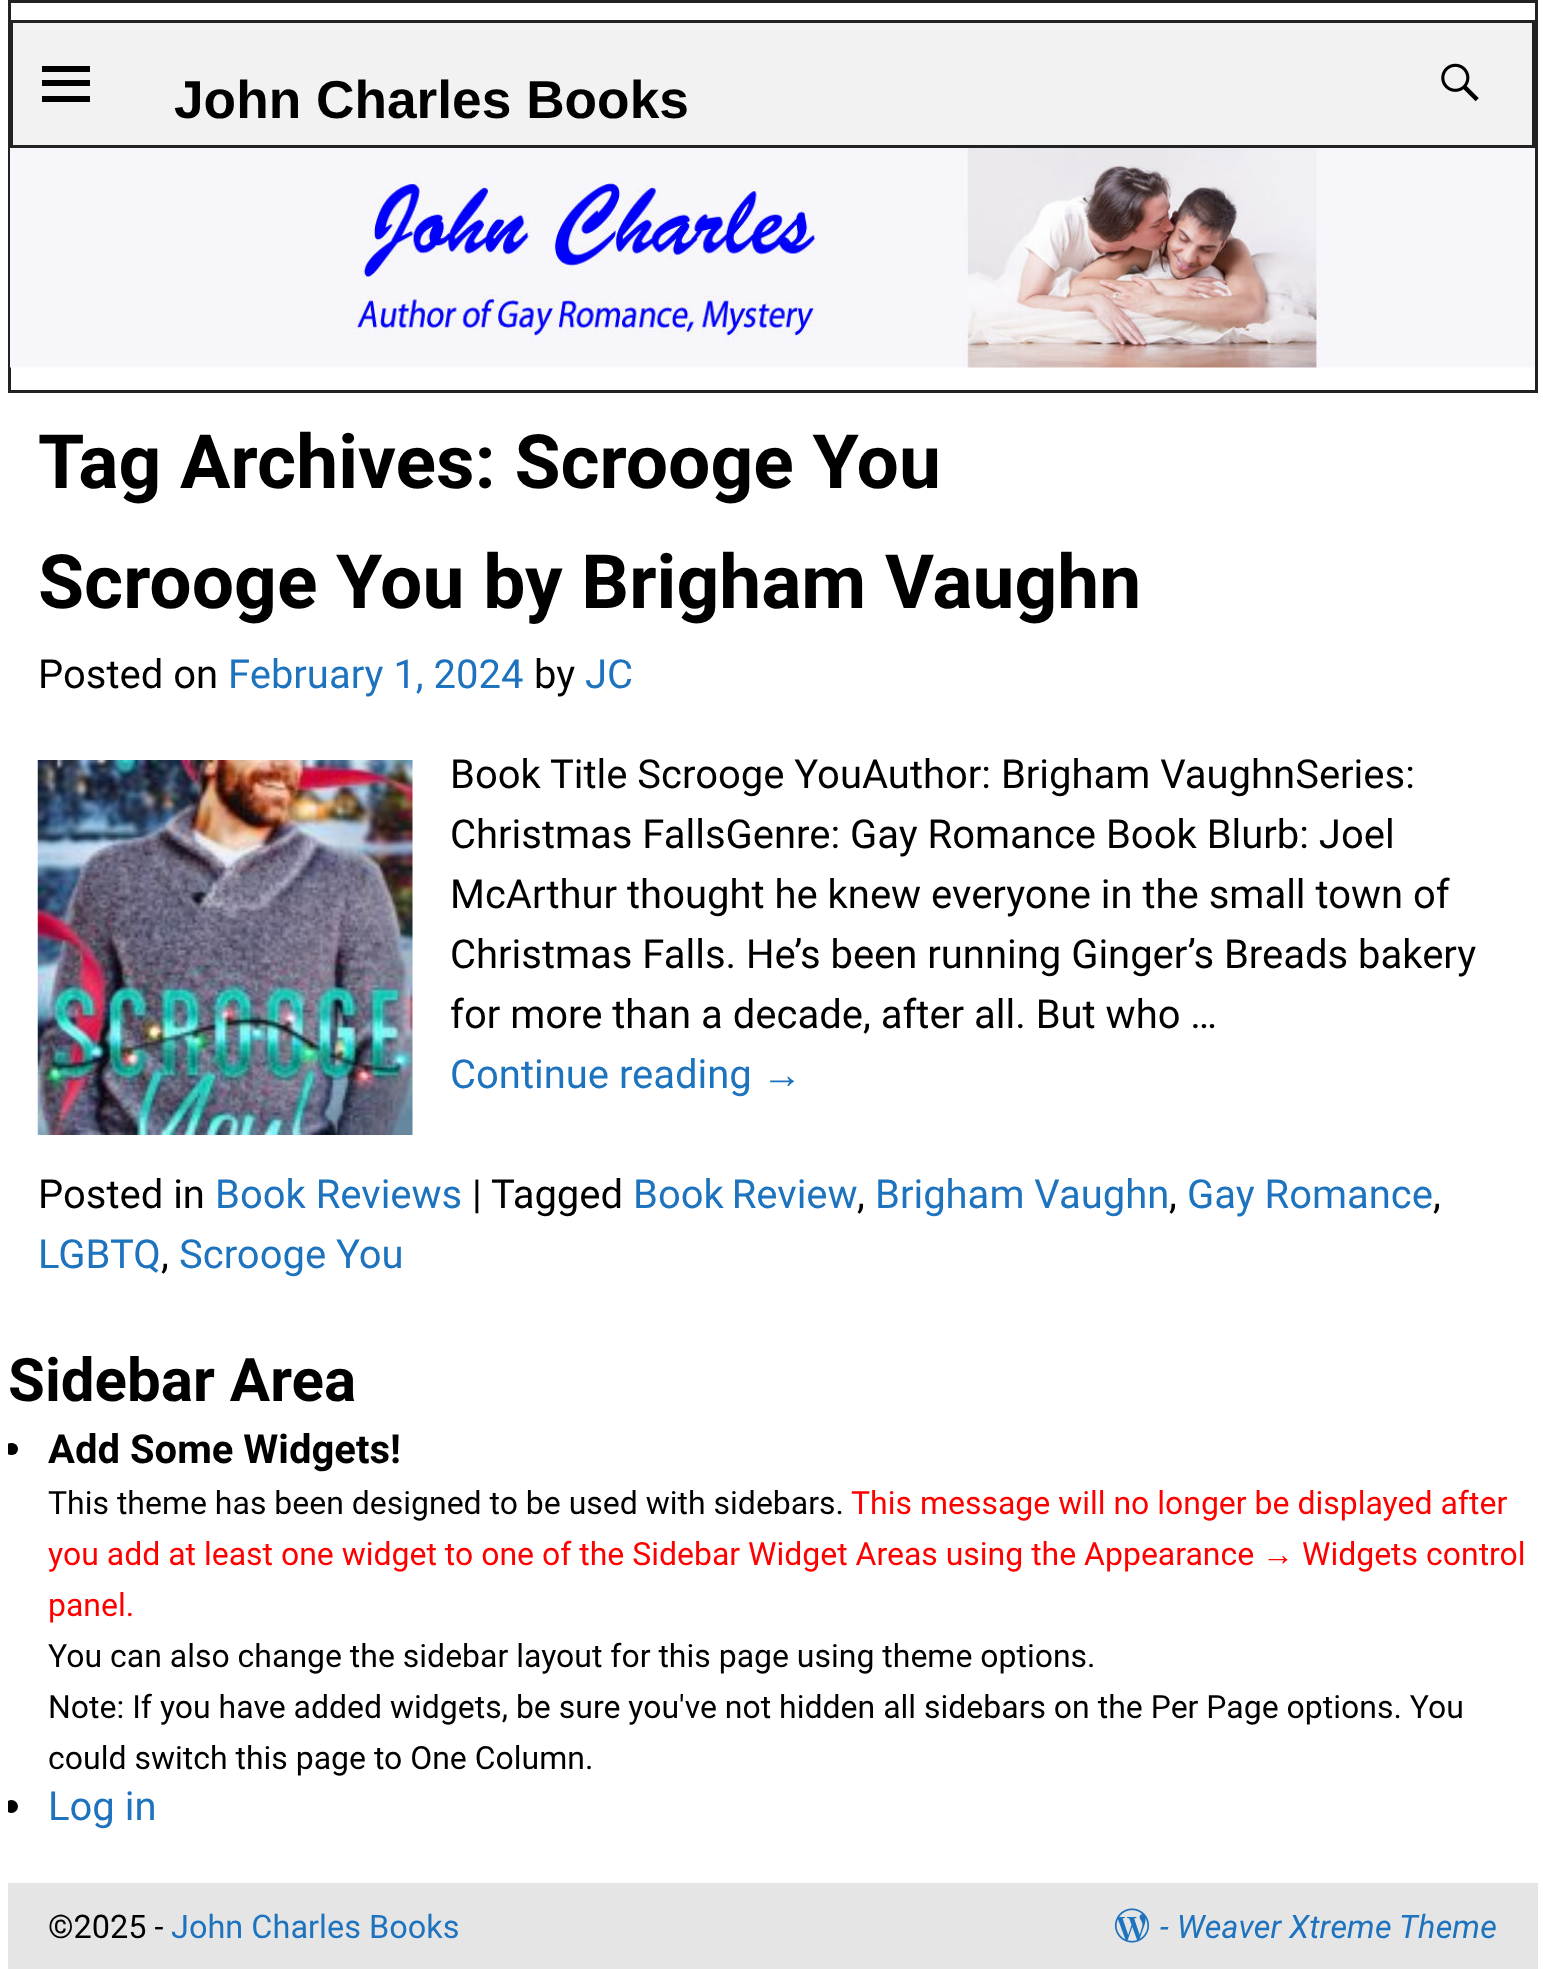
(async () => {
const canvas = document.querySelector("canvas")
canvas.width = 1543
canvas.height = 1969
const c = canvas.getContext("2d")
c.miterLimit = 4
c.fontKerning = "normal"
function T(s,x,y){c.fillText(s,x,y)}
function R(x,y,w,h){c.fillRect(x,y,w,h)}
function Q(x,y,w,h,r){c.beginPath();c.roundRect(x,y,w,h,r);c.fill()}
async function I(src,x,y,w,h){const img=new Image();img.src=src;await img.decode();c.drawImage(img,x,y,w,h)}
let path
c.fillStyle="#fff"
R(0,0,1543,1969)
c.strokeStyle="#222"
c.lineWidth=3
c.strokeRect(9.5,1.5,1527,390)
c.fillStyle="#f2f2f2"
c.beginPath()
c.rect(11.5,21.5,1522,125)
c.fill()
c.stroke()
c.fillStyle="#000"
path = new Path2D("M42 102v-6h48v6zm0-36h48v6h-48zm0 20v-6h48v6z")
c.fill(path)
c.font="bold 53.25px Arimo"
T("John Charles Books",174,118)
await I("1.png",1441,63,38,39)
await I("2.png",10,148,1525,220)
c.font="bold 75px Roboto"
T("Tag Archives: Scrooge You",38,488)
T("Scrooge You by Brigham Vaughn",38,608)
c.font="40px Roboto"
T("Posted on",38,688)
c.fillStyle="#1e73be"
T("February 1, 2024",228,688)
c.fillStyle="#000"
T("by",534,688)
c.fillStyle="#1e73be"
T("JC",585,688)
await I("3.png",37,760,376,375)
c.fillStyle="#000"
T("Book Title Scrooge YouAuthor: Brigham VaughnSeries:",450,788)
T("Christmas FallsGenre: Gay Romance Book Blurb: Joel",450,848)
T("McArthur thought he knew everyone in the small town of",450,908)
T("Christmas Falls. He’s been running Ginger’s Breads bakery",450,968)
T("for more than a decade, after all. But who …",450,1028)
c.fillStyle="#1e73be"
T("Continue reading",450,1088)
c.font="40px Liberation Sans"
T("→",762,1088)
c.font="40px Roboto"
c.fillStyle="#000"
T("Posted in",38,1208)
c.fillStyle="#1e73be"
T("Book Reviews",215,1208)
c.fillStyle="#000"
T("|",472,1208)
T("Tagged",491,1208)
c.wordSpacing="-2px"
c.fillStyle="#1e73be"
T("Book Review",633,1208)
c.wordSpacing="0px"
c.fillStyle="#000"
T(",",857,1208)
c.fillStyle="#1e73be"
T("Brigham Vaughn",875,1208)
c.fillStyle="#000"
T(",",1169,1208)
c.fillStyle="#1e73be"
T("Gay Romance",1187,1208)
c.fillStyle="#000"
T(",",1433,1208)
c.fillStyle="#1e73be"
T("LGBTQ",38,1268)
c.fillStyle="#000"
T(",",161,1268)
c.fillStyle="#1e73be"
T("Scrooge You",179,1268)
c.font="bold 60px Roboto"
c.fillStyle="#000"
T("Sidebar Area",8,1401)
c.save()
c.beginPath()
c.rect(8,1343,1530,490)
c.clip()
Q(5,1443,13,12,6)
c.restore()
c.font="bold 40px Roboto"
T("Add Some Widgets!",48,1463)
c.font="32px Roboto"
T("This theme has been designed to be used with sidebars.",48,1514)
c.fillStyle="#f00"
T("This message will no longer be displayed after",851,1514)
T("you add at least one widget to one of the Sidebar Widget Areas using the Appearance",48,1565)
c.font="32px Liberation Sans"
T("→",1262,1565)
c.font="32px Roboto"
T("Widgets control",1302,1565)
T("panel.",48,1616)
c.fillStyle="#000"
T("You can also change the sidebar layout for this page using theme options.",48,1667)
T("Note: If you have added widgets, be sure you've not hidden all sidebars on the Per Page options. You",48,1718)
T("could switch this page to One Column.",48,1769)
c.save()
c.beginPath()
c.rect(8,1343,1530,490)
c.clip()
c.beginPath()
c.arc(11.5,1806.5,6.5,0,7)
c.fill()
c.restore()
c.font="40px Roboto"
c.fillStyle="#1e73be"
T("Log in",48,1820)
c.fillStyle="#e5e5e5"
R(8,1883,1530,86)
c.font="32.5px Roboto"
c.fillStyle="#000"
T("©2025 -",48,1938)
c.fillStyle="#1e73be"
T("John Charles Books",171,1938)
await I("4.png",1114,1908,36,35)
c.font="italic 32.5px Roboto"
T("- Weaver Xtreme Theme",1160,1938)
})()
